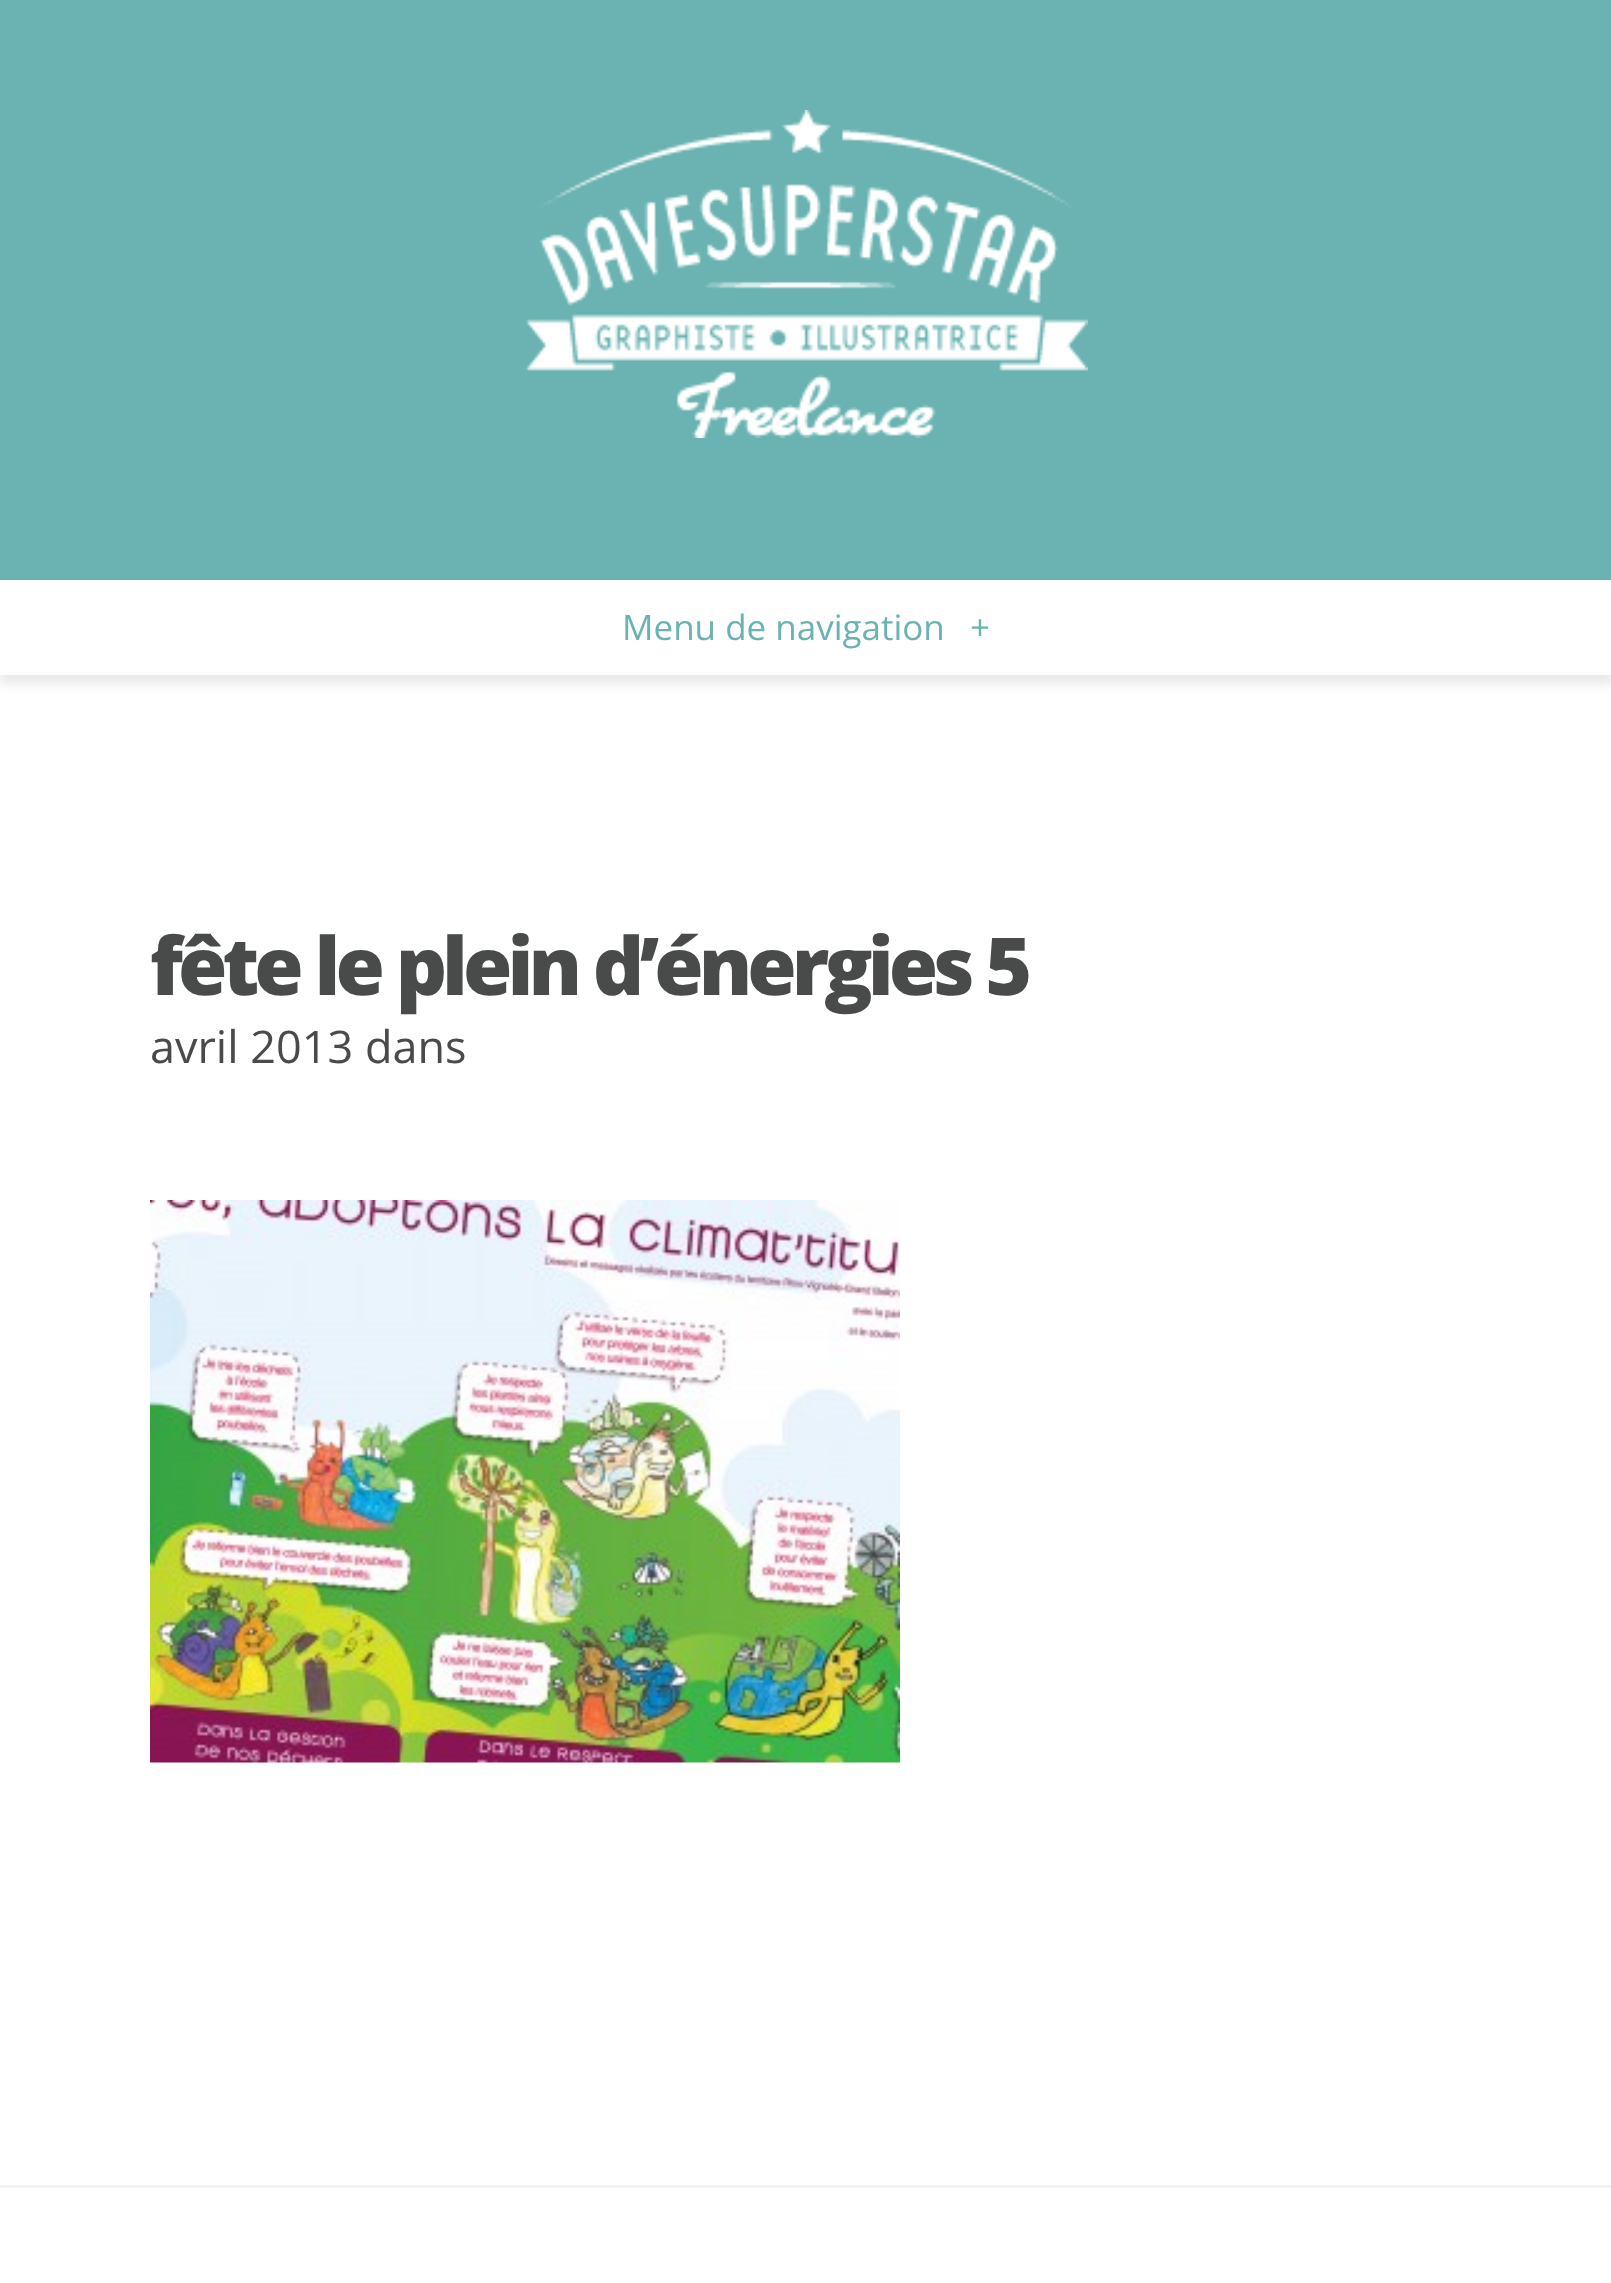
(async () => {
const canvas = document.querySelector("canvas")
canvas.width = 1611
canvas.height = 2283
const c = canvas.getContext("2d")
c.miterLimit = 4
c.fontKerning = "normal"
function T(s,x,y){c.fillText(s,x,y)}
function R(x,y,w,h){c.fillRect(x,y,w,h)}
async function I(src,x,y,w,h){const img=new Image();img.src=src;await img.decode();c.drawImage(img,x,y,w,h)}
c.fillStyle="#fff"
R(0,0,1611,2283)
c.fillStyle="#00000014"
c.filter="blur(5px)"
c.beginPath()
c.rect(0,10,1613,675)
c.fill()
c.filter="none"
c.fillStyle="#6ab3b2"
R(0,0,1611,580)
await I("1.png",525,110,563,328)
c.fillStyle="#fff"
R(0,580,1611,95)
c.font="35px Open Sans"
c.fillStyle="#6ab3b2"
T("Menu de navigation",622,640)
T("+",970,640)
c.letterSpacing="-5px"
c.font="800 80px Open Sans"
c.fillStyle="#494b4b"
T("fête le plein d’énergies 5",150,995)
c.letterSpacing="0px"
c.font="45px Open Sans"
T("avril 2013 dans",150,1063)
await I("2.png",150,1200,750,563)
c.fillStyle="#f3f3f3"
R(0,2185,1611,3)
})()
